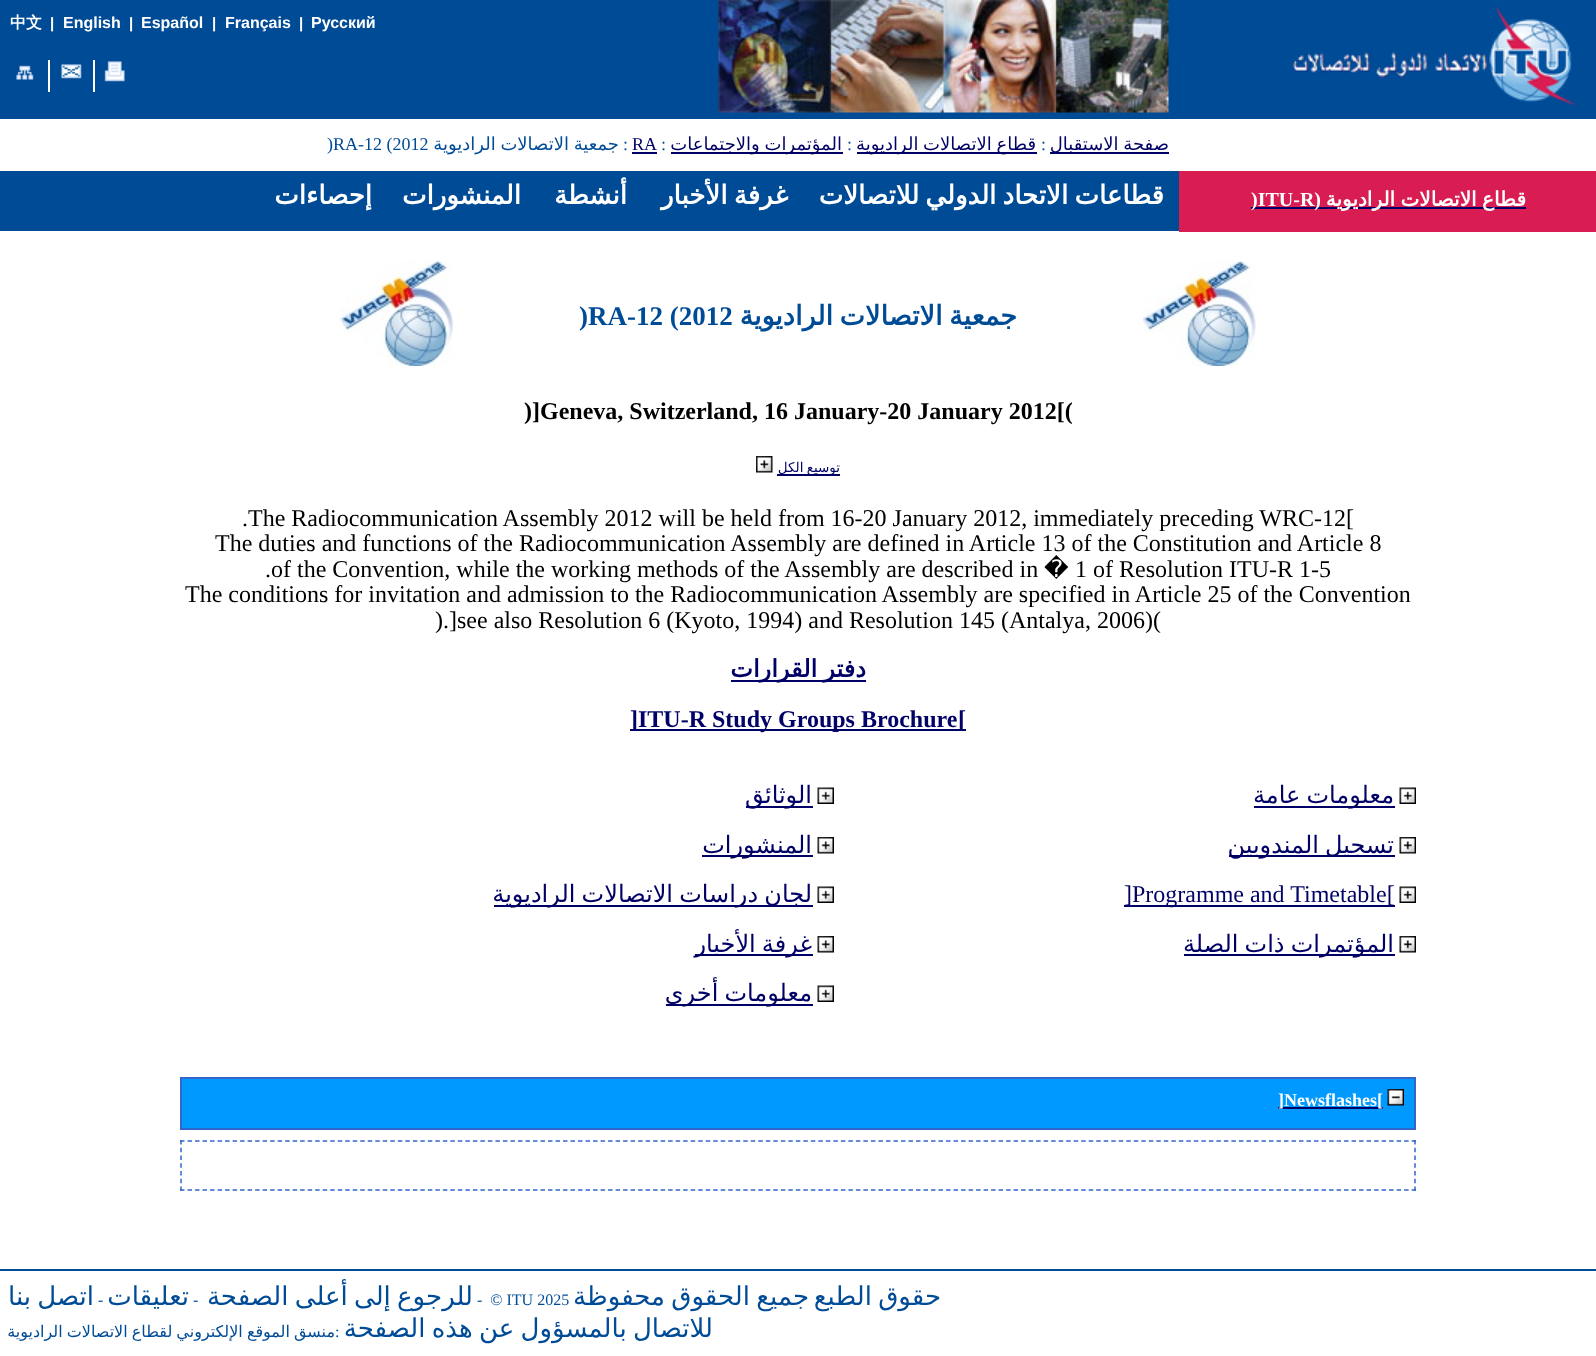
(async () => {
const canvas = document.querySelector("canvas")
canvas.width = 1596
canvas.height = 1356
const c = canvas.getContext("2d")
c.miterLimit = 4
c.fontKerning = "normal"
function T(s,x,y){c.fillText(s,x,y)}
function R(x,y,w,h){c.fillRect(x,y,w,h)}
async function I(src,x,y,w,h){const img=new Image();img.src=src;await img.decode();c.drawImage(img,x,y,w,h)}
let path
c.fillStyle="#fff"
R(0,0,1596,1356)
c.fillStyle="#004b96"
R(0,0,1596,119)
c.font="bold 16px WenQuanYi Zen Hei"
c.fillStyle="#fff"
T("中文",10,28)
c.font="bold 15px Liberation Sans"
T("|",50,28)
c.font="bold 16px Liberation Sans"
T("English",63,28)
c.font="bold 15px Liberation Sans"
T("|",129,28)
c.font="bold 16px Liberation Sans"
T("Español",141,28)
c.font="bold 15px Liberation Sans"
T("|",212,28)
c.font="bold 16px Liberation Sans"
T("Français",225,28)
c.font="bold 15px Liberation Sans"
T("|",299,28)
c.font="bold 16px Liberation Sans"
T("Русский",311,28)
R(48,60,2,32)
await I("1.png",16,65,18,15)
R(93,60,2,32)
await I("2.png",61,64,21,15)
await I("3.png",104,61,21,21)
await I("4.png",718,0,451,113)
await I("5.png",1292,6,285,100)
c.font="18px Liberation Serif"
c.fillStyle="#004b96"
T(")RA-12 (2012",327,150)
c.wordSpacing="-1px"
c.direction="rtl"
c.font="18px DejaVu Sans"
T("جمعية الاتصالات الراديوية",619,150)
c.wordSpacing="0px"
c.font="18px Liberation Serif"
T(":",628,150)
c.direction="ltr"
c.fillStyle="#006"
T("RA",632,150)
R(632,152,25,2)
c.fillStyle="#004b96"
T(":",661,150)
c.fillStyle="#006"
R(671,152,172,2)
c.wordSpacing="-1px"
c.direction="rtl"
c.font="18px DejaVu Sans"
T("المؤتمرات والاجتماعات",842,150)
c.wordSpacing="0px"
c.direction="ltr"
c.font="18px Liberation Serif"
c.fillStyle="#004b96"
T(":",847,150)
c.fillStyle="#006"
R(857,152,180,2)
c.wordSpacing="-1px"
c.direction="rtl"
c.font="18px DejaVu Sans"
T("قطاع الاتصالات الراديوية",1036,150)
c.wordSpacing="0px"
c.direction="ltr"
c.font="18px Liberation Serif"
c.fillStyle="#004b96"
T(":",1041,150)
c.fillStyle="#006"
R(1050,152,119,2)
c.wordSpacing="-1px"
c.direction="rtl"
c.font="18px DejaVu Sans"
T("صفحة الاستقبال",1169,150)
c.fillStyle="#004b96"
R(0,171,1179,60)
c.fillStyle="#d91d52"
R(1179,171,417,61)
c.fillStyle="#006"
R(1251,207,63,2)
c.wordSpacing="0px"
c.direction="ltr"
c.font="bold 20px Liberation Serif"
c.fillStyle="#fff"
T(")ITU-R",1251,206)
c.fillStyle="#006"
R(1314,207,212,2)
c.direction="rtl"
c.fillStyle="#fff"
T("(",1321,206)
c.wordSpacing="-1px"
c.font="bold 20px DejaVu Sans"
T("قطاع الاتصالات الراديوية",1526,206)
c.fillStyle="#004b96"
R(0,1269,1596,2)
await I("6.png",340,261,113,105)
c.wordSpacing="0px"
c.direction="ltr"
c.font="bold 27px Liberation Serif"
T(")RA-12 (2012",579,325)
c.wordSpacing="-2px"
c.direction="rtl"
c.font="bold 27px DejaVu Sans"
T("جمعية الاتصالات الراديوية",1017,325)
await I("7.png",1143,261,113,105)
c.wordSpacing="0px"
c.direction="ltr"
c.font="bold 24px Liberation Serif"
c.fillStyle="#000"
T(")]Geneva, Switzerland, 16 January-20 January 2012[(",524,419)
await I("8.png",756,456,17,17)
c.fillStyle="#006"
R(777,474,63,2)
c.wordSpacing="-1px"
c.direction="rtl"
c.font="13.5px DejaVu Sans"
T("توسيع الكل",840,472)
c.wordSpacing="0px"
c.direction="ltr"
c.font="24px Liberation Serif"
c.fillStyle="#000"
T(".The Radiocommunication Assembly 2012 will be held from 16-20 January 2012, immediately preceding WRC-12[",242,526)
T("The duties and functions of the Radiocommunication Assembly are defined in Article 13 of the Constitution and Article 8",215,551)
T(".of the Convention, while the working methods of the Assembly are described in",265,577)
c.font="24px DejaVu Sans"
T("�",1044,577)
c.font="24px Liberation Serif"
T("1 of Resolution ITU-R 1-5",1075,577)
T("The conditions for invitation and admission to the Radiocommunication Assembly are specified in Article 25 of the Convention",185,602)
T(").]see also Resolution 6 (Kyoto, 1994) and Resolution 145 (Antalya, 2006)(",435,628)
c.fillStyle="#006"
R(731,680,135,2)
c.wordSpacing="-1.5px"
c.direction="rtl"
c.font="bold 24px DejaVu Sans"
T("دفتر القرارات",866,677)
R(630,729,327,2)
c.wordSpacing="0px"
c.direction="ltr"
c.font="bold 24px Liberation Serif"
T("]ITU-R Study Groups Brochure",630,727)
R(957,729,9,2)
T("[",958,727)
R(746,806,67,2)
c.direction="rtl"
c.font="24px DejaVu Sans"
T("الوثائق",812,803)
await I("9.png",817,787,17,17)
R(702,855,111,2)
T("المنشورات",812,853)
await I("10.png",817,837,17,17)
R(494,905,319,2)
c.wordSpacing="-1.5px"
T("لجان دراسات الاتصالات الراديوية",812,902)
await I("9.png",817,886,17,17)
R(695,954,118,2)
T("غرفة الأخبار",812,952)
await I("10.png",817,936,17,17)
R(666,1004,147,2)
T("معلومات أخرى",812,1001)
await I("9.png",817,985,17,17)
R(1254,806,141,2)
T("معلومات عامة",1394,803)
await I("11.png",1399,787,17,17)
R(1229,855,166,2)
T("تسجيل المندوبين",1394,853)
await I("12.png",1399,837,17,17)
R(1124,905,271,2)
c.wordSpacing="0px"
c.direction="ltr"
c.font="24px Liberation Serif"
T("]Programme and Timetable[",1124,902)
await I("11.png",1399,886,17,17)
R(1184,954,211,2)
c.wordSpacing="-1.5px"
c.direction="rtl"
c.font="24px DejaVu Sans"
T("المؤتمرات ذات الصلة",1394,952)
await I("12.png",1399,936,17,17)
c.fillStyle="#09f"
c.beginPath()
c.rect(181,1078,1234,51)
c.fill()
c.strokeStyle="#36c"
c.lineWidth=2
c.stroke()
c.fillStyle="#006"
R(1278,1107,105,2)
c.wordSpacing="0px"
c.direction="ltr"
c.font="bold 18px Liberation Serif"
c.fillStyle="#fff"
T("]Newsflashes[",1278,1106)
await I("13.png",1387,1089,17,17)
path = new Path2D("M180 1141h1236")
c.lineWidth=1.5
c.setLineDash([4.5,3.01])
c.stroke(path)
path = new Path2D("M1415 1140v51")
c.setLineDash([4.5,3.25])
c.stroke(path)
path = new Path2D("M180 1190h1236")
c.setLineDash([4.5,3.01])
c.stroke(path)
path = new Path2D("M181 1140v51")
c.setLineDash([4.5,3.25])
c.stroke(path)
c.wordSpacing="-2px"
c.direction="rtl"
c.font="26px DejaVu Sans"
c.fillStyle="#004b96"
T("اتصل بنا",94,1305)
c.wordSpacing="0px"
c.direction="ltr"
c.font="16px Liberation Serif"
T("-",98,1305)
c.direction="rtl"
c.font="26px DejaVu Sans"
T("تعليقات",189,1305)
c.direction="ltr"
c.font="16px Liberation Serif"
T("-",193,1305)
c.wordSpacing="-2px"
c.direction="rtl"
c.font="26px DejaVu Sans"
T("للرجوع إلى أعلى الصفحة",473,1305)
c.wordSpacing="0px"
c.direction="ltr"
c.font="16px Liberation Serif"
T("-  © ITU 2025",477,1305)
c.wordSpacing="-2px"
c.direction="rtl"
c.font="26px DejaVu Sans"
T("جميع الحقوق محفوظة",809,1305)
T("حقوق الطبع",941,1305)
c.wordSpacing="0px"
c.direction="ltr"
c.font="16px Liberation Serif"
T(":",335,1337)
c.wordSpacing="-1px"
c.direction="rtl"
c.font="16px DejaVu Sans"
T("منسق الموقع الإلكتروني لقطاع الاتصالات الراديوية",335,1337)
c.wordSpacing="-2px"
c.font="26px DejaVu Sans"
T("للاتصال بالمسؤول عن هذه الصفحة",713,1337)
c.wordSpacing="0px"
c.font="bold 26px DejaVu Sans"
c.fillStyle="#fff"
T("إحصاءات",372,204)
T("المنشورات",521,204)
T("أنشطة",627,204)
c.wordSpacing="-2px"
T("غرفة الأخبار",788,204)
T("قطاعات الاتحاد الدولي للاتصالات",1164,204)
})()
